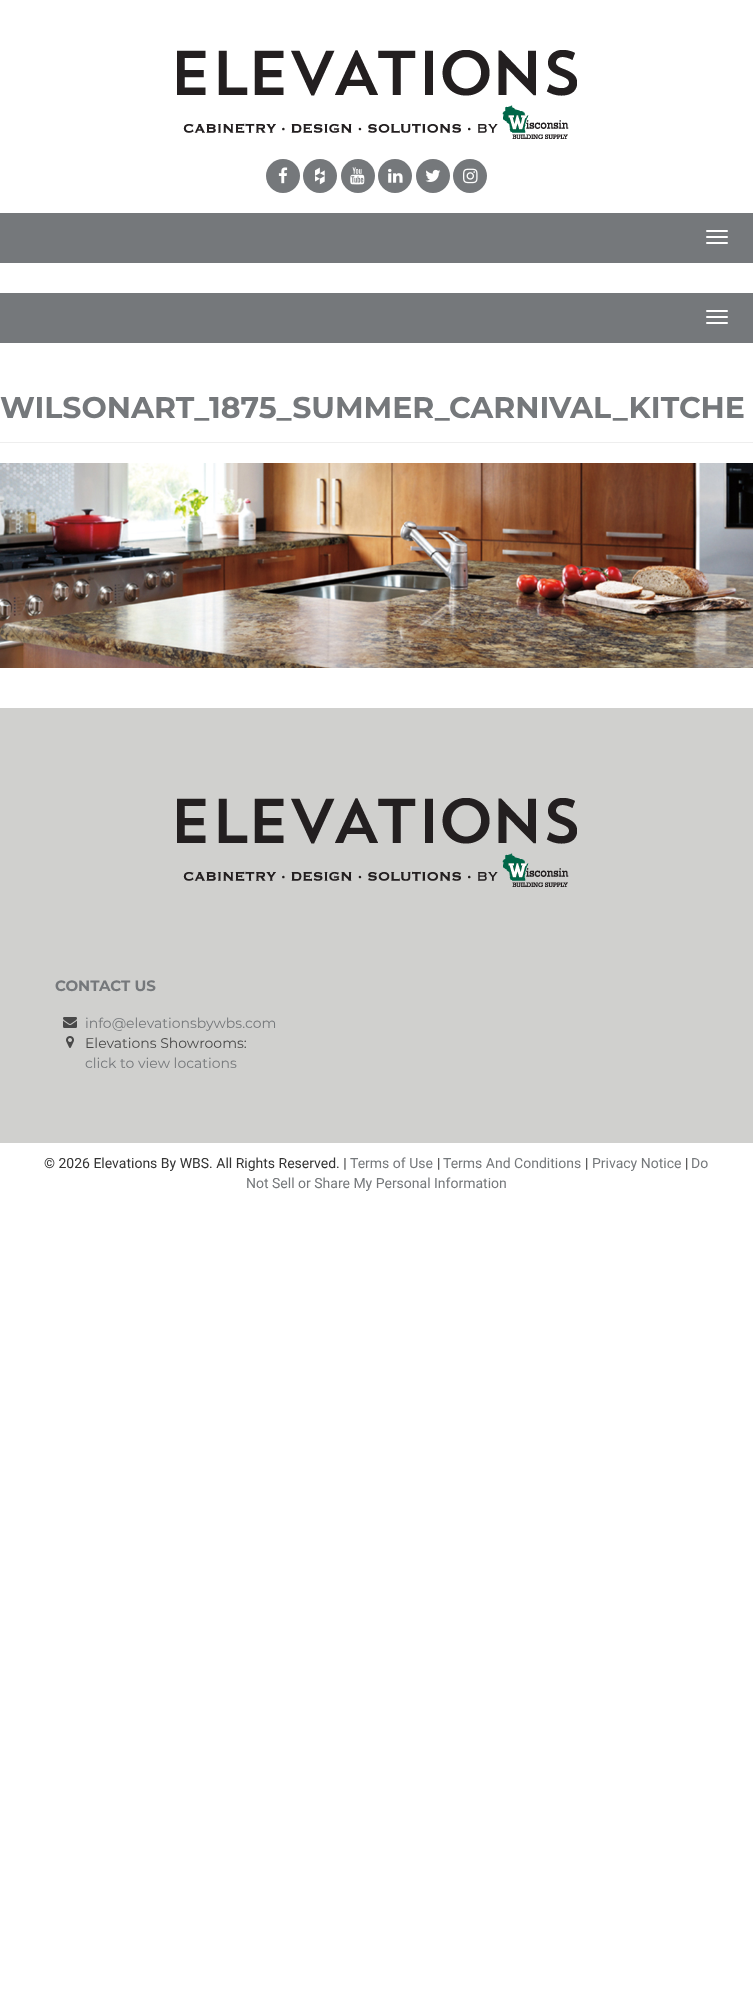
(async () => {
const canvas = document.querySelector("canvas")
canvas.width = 753
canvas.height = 1994
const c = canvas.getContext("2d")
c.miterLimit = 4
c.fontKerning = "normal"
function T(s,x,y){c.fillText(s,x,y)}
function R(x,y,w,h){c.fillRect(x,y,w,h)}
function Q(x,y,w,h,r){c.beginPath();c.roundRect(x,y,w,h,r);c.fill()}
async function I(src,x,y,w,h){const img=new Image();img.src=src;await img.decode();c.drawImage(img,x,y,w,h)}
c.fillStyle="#fff"
R(0,0,753,1994)
await I("1.png",177,50,400,89)
c.fillStyle="#75787b"
c.beginPath()
c.arc(283,176,17,0,7)
c.fill()
await I("2.png",278,167,10,17)
c.beginPath()
c.arc(320,176,17,0,7)
c.fill()
await I("3.png",315,167,10,18)
c.beginPath()
c.arc(358,176,17,0,7)
c.fill()
await I("4.png",350,167,15,18)
c.beginPath()
c.arc(395,176,17,0,7)
c.fill()
await I("5.png",388,168,15,15)
c.beginPath()
c.arc(433,176,17,0,7)
c.fill()
await I("6.png",425,169,16,13)
c.beginPath()
c.arc(470,176,17,0,7)
c.fill()
await I("7.png",463,168,15,16)
R(0,213,753,50)
c.fillStyle="#fff"
Q(706,230,22,2,1)
Q(706,236,22,2,1)
Q(706,242,22,2,1)
c.fillStyle="#75787b"
R(0,293,753,50)
c.fillStyle="#fff"
Q(706,310,22,2,1)
Q(706,316,22,2,1)
Q(706,322,22,2,1)
c.fillStyle="#eee"
R(0,442,753,1)
c.font="bold 30px Montserrat"
c.fillStyle="#75787b"
T("WILSONART_1875_SUMMER_CARNIVAL_KITCHE",0,418)
await I("8.png",0,463,753,205)
c.fillStyle="#d0d0ce"
R(0,708,753,435)
await I("9.png",177,798,400,89)
c.font="bold 15px Montserrat"
c.fillStyle="#75787b"
T("CONTACT US",55,991)
await I("10.png",63,1017,14,11)
c.font="14px Montserrat"
T("info@elevationsbywbs.com",85,1028)
await I("11.png",66,1036,8,12)
c.fillStyle="#494949"
T("Elevations Showrooms:",85,1048)
c.fillStyle="#75787b"
T("click to view locations",85,1068)
c.font="14px Roboto"
c.fillStyle="#333"
T("© 2026 Elevations By WBS. All Rights Reserved. |",44,1168)
c.fillStyle="#75787b"
T("Terms of Use",350,1168)
c.fillStyle="#333"
T("|",437,1168)
c.fillStyle="#75787b"
T("Terms And Conditions",443,1168)
c.fillStyle="#333"
T("|",585,1168)
c.fillStyle="#75787b"
T("Privacy Notice",592,1168)
c.fillStyle="#333"
T("|",685,1168)
c.fillStyle="#75787b"
T("Do",691,1168)
T("Not Sell or Share My Personal Information",246,1188)
})()
